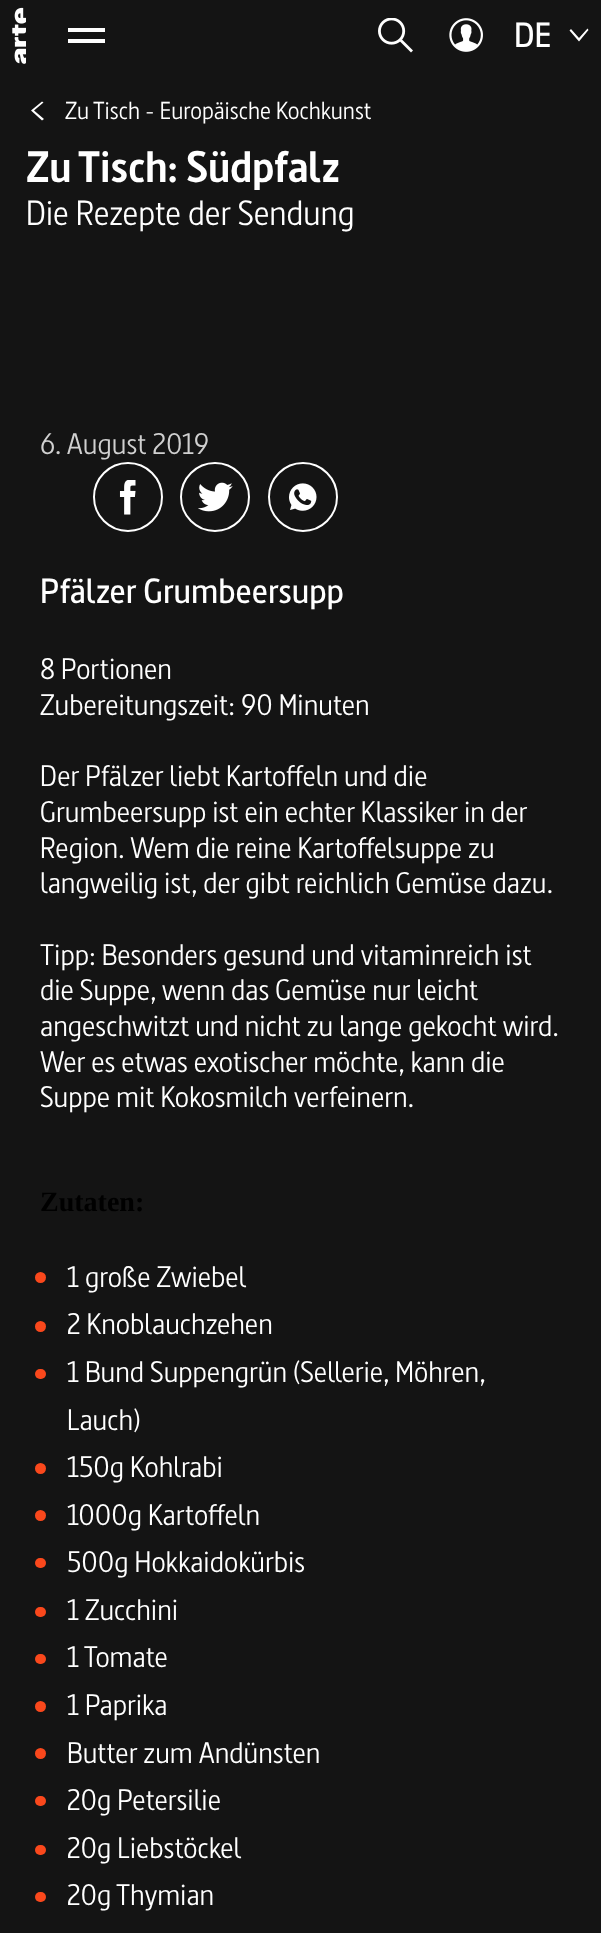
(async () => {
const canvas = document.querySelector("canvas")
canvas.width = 601
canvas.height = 1933
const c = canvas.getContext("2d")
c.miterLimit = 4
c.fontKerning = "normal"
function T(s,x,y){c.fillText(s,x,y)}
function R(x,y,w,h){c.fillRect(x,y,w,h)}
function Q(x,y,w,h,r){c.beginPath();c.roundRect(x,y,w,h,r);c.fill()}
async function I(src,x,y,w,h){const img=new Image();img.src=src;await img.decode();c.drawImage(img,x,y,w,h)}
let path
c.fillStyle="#141414"
R(0,0,601,1933)
await I("1.png",12,7,14,57)
c.fillStyle="#fff"
R(68,28,37,4)
R(68,39,37,4)
await I("2.png",378,18,35,35)
await I("3.png",449,18,34,34)
c.font="600 35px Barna"
T("DE",514,47)
path = new Path2D("M588.5 30l-1-1.5l-8.5 9.5l-8-9l-1.5 1.5l9.5 11z")
c.fill(path)
path = new Path2D("M42 120.5l2-1.5l-10-8.5l9.5-8l-1.5-1l-11 9z")
c.fill(path)
c.font="24.5px Barna"
T("Zu Tisch - Europäische Kochkunst",65,119)
c.font="bold 43.75px Barna"
T("Zu Tisch: Südpfalz",26,182)
c.font="35px Barna"
T("Die Rezepte der Sendung",26,225)
c.font="29.75px Barna"
c.fillStyle="#d0d0d0"
T("6. August 2019",40,454)
c.beginPath()
c.arc(128,497,34,0,7)
c.strokeStyle="#fff"
c.lineWidth=2
c.stroke()
await I("4.png",119,480,17,35)
c.beginPath()
c.arc(215,497,34,0,7)
c.stroke()
await I("5.png",198,482,35,30)
c.beginPath()
c.arc(303,497,34,0,7)
c.stroke()
await I("6.png",289,483,28,28)
c.font="600 35px Barna"
c.fillStyle="#fff"
T("Pfälzer Grumbeersupp",40,603)
c.font="29.75px Barna"
T("8 Portionen",40,679)
T("Zubereitungszeit: 90 Minuten",40,715)
T("Der Pfälzer liebt Kartoffeln und die",40,786)
T("Grumbeersupp ist ein echter Klassiker in der",40,822)
T("Region. Wem die reine Kartoffelsuppe zu",40,858)
T("langweilig ist, der gibt reichlich Gemüse dazu.",40,893)
T("Tipp: Besonders gesund und vitaminreich ist",40,965)
T("die Suppe, wenn das Gemüse nur leicht",40,1000)
T("angeschwitzt und nicht zu lange gekocht wird.",40,1036)
T("Wer es etwas exotischer möchte, kann die",40,1072)
T("Suppe mit Kokosmilch verfeinern.",40,1107)
c.font="bold 28px Liberation Serif"
c.fillStyle="#000"
T("Zutaten:",40,1211)
c.fillStyle="#fa481c"
c.beginPath()
c.arc(40.5,1277.5,5.5,0,7)
c.fill()
c.font="29.75px Barna"
c.fillStyle="#fff"
T("1 große Zwiebel",67,1287)
c.fillStyle="#fa481c"
c.beginPath()
c.arc(40.5,1326.5,5.5,0,7)
c.fill()
c.fillStyle="#fff"
T("2 Knoblauchzehen",67,1334)
c.fillStyle="#fa481c"
Q(35,1369,11,10,5)
c.fillStyle="#fff"
T("1 Bund Suppengrün (Sellerie, Möhren,",67,1382)
T("Lauch)",67,1430)
c.fillStyle="#fa481c"
c.beginPath()
c.arc(40.5,1468.5,5.5,0,7)
c.fill()
c.fillStyle="#fff"
T("150g Kohlrabi",67,1477)
c.fillStyle="#fa481c"
c.beginPath()
c.arc(40.5,1515.5,5.5,0,7)
c.fill()
c.fillStyle="#fff"
T("1000g Kartoffeln",67,1525)
c.fillStyle="#fa481c"
Q(35,1558,11,10,5)
c.fillStyle="#fff"
T("500g Hokkaidokürbis",67,1572)
c.fillStyle="#fa481c"
Q(35,1607,11,10,5)
c.fillStyle="#fff"
T("1 Zucchini",67,1620)
c.fillStyle="#fa481c"
Q(35,1654,11,10,5)
c.fillStyle="#fff"
T("1 Tomate",67,1667)
c.fillStyle="#fa481c"
c.beginPath()
c.arc(40.5,1706.5,5.5,0,7)
c.fill()
c.fillStyle="#fff"
T("1 Paprika",67,1715)
c.fillStyle="#fa481c"
c.beginPath()
c.arc(40.5,1753.5,5.5,0,7)
c.fill()
c.fillStyle="#fff"
T("Butter zum Andünsten",67,1763)
c.fillStyle="#fa481c"
Q(35,1796,11,10,5)
c.fillStyle="#fff"
T("20g Petersilie",67,1810)
c.fillStyle="#fa481c"
Q(35,1845,11,10,5)
c.fillStyle="#fff"
T("20g Liebstöckel",67,1858)
c.fillStyle="#fa481c"
Q(35,1892,11,10,5)
c.fillStyle="#fff"
T("20g Thymian",67,1905)
})()
